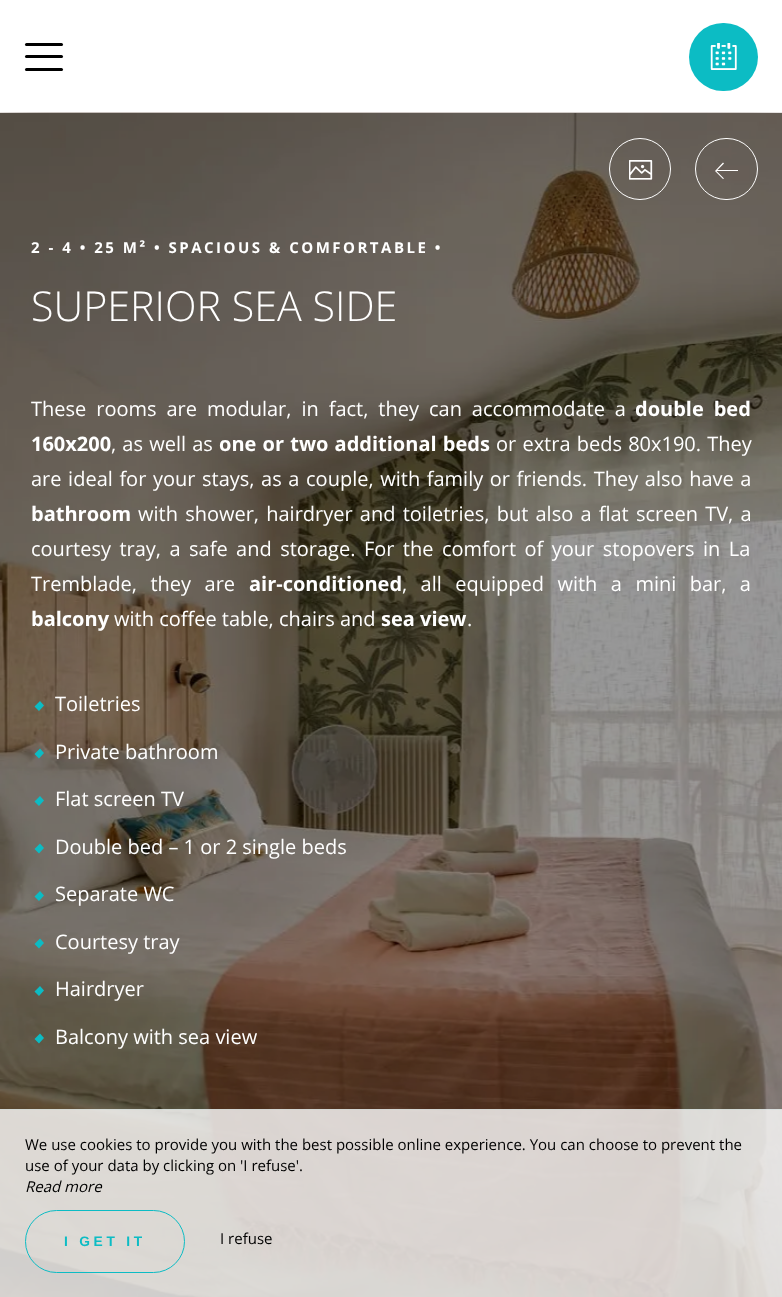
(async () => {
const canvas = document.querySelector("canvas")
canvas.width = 782
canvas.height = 1297
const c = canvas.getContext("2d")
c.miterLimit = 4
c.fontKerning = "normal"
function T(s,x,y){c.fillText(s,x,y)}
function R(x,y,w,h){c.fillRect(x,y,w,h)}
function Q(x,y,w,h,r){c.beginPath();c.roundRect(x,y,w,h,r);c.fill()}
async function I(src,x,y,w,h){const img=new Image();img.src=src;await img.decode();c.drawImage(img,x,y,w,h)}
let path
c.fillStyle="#fff"
R(0,0,782,1297)
c.fillStyle="#000"
Q(25,43,38,3,1.5)
Q(25,55,38,3,1.5)
Q(25,68,38,3,1.5)
c.fillStyle="#0cbcc4"
Q(689,23,69,68,34)
await I("1.png",710,43,27,27)
await I("2.png",0,112,782,1)
await I("3.png",0,113,782,1184)
c.beginPath()
c.arc(640,169,30.5,0,7)
c.strokeStyle="#fff"
c.stroke()
await I("4.png",629,160,24,20)
c.beginPath()
c.roundRect(695.5,138.5,62,61,30.5)
c.stroke()
c.fillStyle="#fff"
path = new Path2D("M724 163.5l-1-1l-8 8.5l8 8l1-.5l-7.5-7.5z")
c.fill(path)
R(716,170,22,1)
c.letterSpacing="2.5px"
c.font="bold 15px Open Sans"
T("2 - 4 • 25 M² • SPACIOUS & COMFORTABLE •",31,253)
c.letterSpacing="0px"
c.font="300 41.25px Open Sans"
T("SUPERIOR SEA SIDE",31,321)
c.wordSpacing="4.75px"
c.font="20px Open Sans"
T("These rooms are modular, in fact, they can accommodate a",31,416)
c.font="bold 20px Open Sans"
T("double bed",635,416)
c.wordSpacing="0px"
T("160x200",31,451)
c.wordSpacing="1px"
c.font="20px Open Sans"
T(", as well as",111,451)
c.font="bold 20px Open Sans"
T("one or two additional beds",219,451)
c.font="20px Open Sans"
T("or extra beds 80x190. They",496,451)
c.wordSpacing="1.4px"
T("are ideal for your stays, as a couple, with family or friends. They also have a",31,486)
c.wordSpacing="0px"
c.font="bold 20px Open Sans"
T("bathroom",31,521)
c.wordSpacing="2px"
c.font="20px Open Sans"
T("with shower, hairdryer and toiletries, but also a flat screen TV, a",138,521)
c.wordSpacing="3.25px"
T("courtesy tray, a safe and storage. For the comfort of your stopovers in La",31,556)
c.wordSpacing="8.25px"
T("Tremblade, they are",31,591)
c.wordSpacing="0px"
c.font="bold 20px Open Sans"
T("air-conditioned",249,591)
c.wordSpacing="8.25px"
c.font="20px Open Sans"
T(", all equipped with a mini bar, a",402,591)
c.wordSpacing="0px"
c.font="bold 20px Open Sans"
T("balcony",31,626)
c.font="20px Open Sans"
T("with coffee table, chairs and",114,626)
c.font="bold 20px Open Sans"
T("sea view",381,626)
c.font="20px Open Sans"
T(".",467,626)
c.fillStyle="#0cbcc4"
path = new Path2D("M40 701l4 4.5l-5 5.5l-4.5-4.5zm0 47.5l4 4.5l-5 5.5l-4.5-4.5z")
c.fill(path)
c.fillStyle="#fff"
T("Toiletries",55,711)
T("Private bathroom",55,759)
c.fillStyle="#0cbcc4"
path = new Path2D("M40 796l4 4.5l-5 5.5l-4.5-4.5zm0 47.5l4 4.5l-5 5.5l-4.5-4.5z")
c.fill(path)
c.fillStyle="#fff"
T("Flat screen TV",55,806)
T("Double bed – 1 or 2 single beds",55,854)
c.fillStyle="#0cbcc4"
path = new Path2D("M40 891l4 4.5l-5 5.5l-4.5-4.5zm0 47.5l4 4.5l-5 5.5l-4.5-4.5z")
c.fill(path)
c.fillStyle="#fff"
T("Separate WC",55,901)
T("Courtesy tray",55,949)
c.fillStyle="#0cbcc4"
path = new Path2D("M40 986l4 4.5l-5 5.5l-4.5-4.5zm0 47.5l4 4.5l-5 5.5l-4.5-4.5z")
c.fill(path)
c.fillStyle="#fff"
T("Hairdryer",55,996)
T("Balcony with sea view",55,1044)
c.fillStyle="#ffffffcc"
R(0,1109,782,188)
c.fillStyle="#add5d633"
R(0,1109,782,1)
c.font="15px Open Sans"
c.fillStyle="#000"
T("We use cookies to provide you with the best possible online experience. You can choose to prevent the",25,1150)
T("use of your data by clicking on 'I refuse'.",25,1171)
c.font="italic 15px Open Sans"
T("Read more",25,1192)
c.beginPath()
c.roundRect(25.5,1210.5,159,62,31)
c.strokeStyle="#0cbcc4"
c.stroke()
c.letterSpacing="3.75px"
c.font="bold 13.75px Liberation Sans"
c.fillStyle="#0cbcc4"
T("I GET IT",64,1246)
c.letterSpacing="0px"
c.font="15px Open Sans"
c.fillStyle="#000"
T("I refuse",220,1244)
})()
